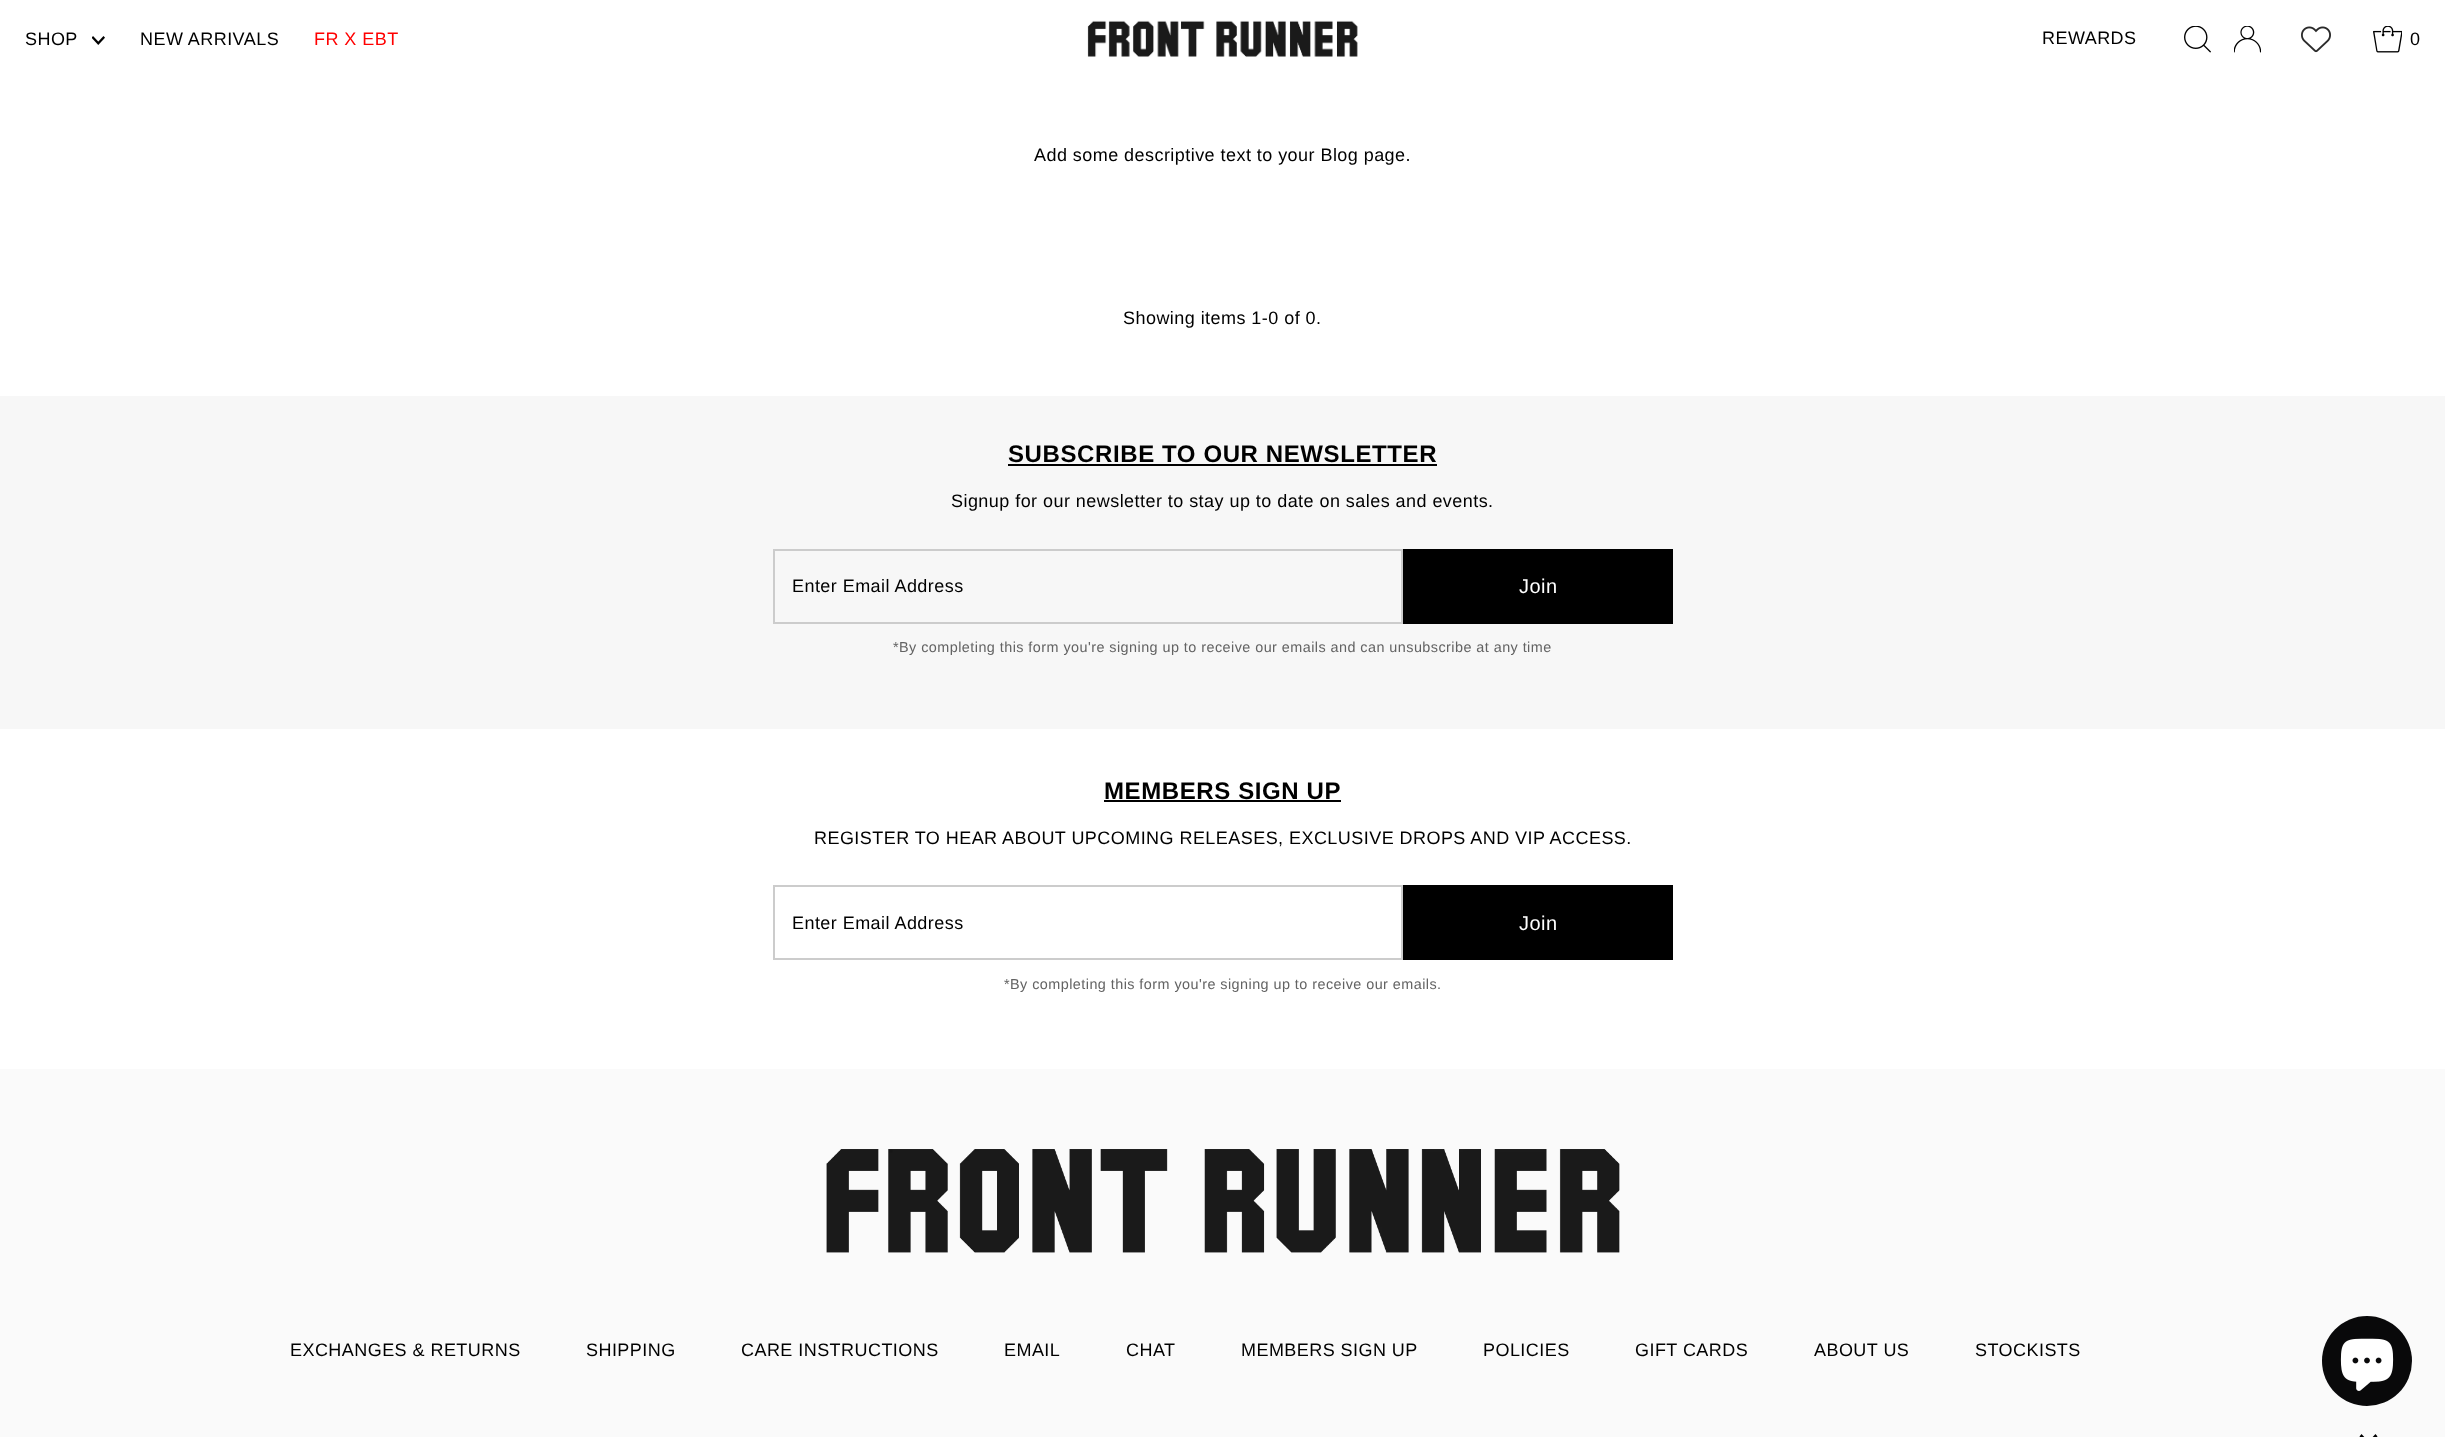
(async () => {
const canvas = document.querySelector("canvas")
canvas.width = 2445
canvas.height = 1437
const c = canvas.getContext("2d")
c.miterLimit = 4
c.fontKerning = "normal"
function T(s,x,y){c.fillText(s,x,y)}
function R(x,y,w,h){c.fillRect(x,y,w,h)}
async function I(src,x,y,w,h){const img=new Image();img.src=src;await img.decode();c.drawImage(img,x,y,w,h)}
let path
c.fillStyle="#fff"
R(0,0,2445,1437)
c.letterSpacing="0.45px"
c.font="18px Liberation Sans"
c.fillStyle="#000"
T("SHOP",25,45)
await I("1.png",92,36,13,9)
T("NEW ARRIVALS",140,45)
c.fillStyle="#f00"
T("FR X EBT",314,45)
await I("2.png",1087,20,271,37)
c.fillStyle="#000"
T("REWARDS",2042,44)
await I("3.png",2184,26,27,27)
await I("4.png",2234,26,27,27)
await I("5.png",2301,26,30,27)
await I("6.png",2373,26,29,27)
T("0",2410,45)
T("Add some descriptive text to your Blog page.",1034,161)
T("Showing items 1-0 of 0.",1123,324)
c.fillStyle="#f7f7f7"
R(0,396,2445,333)
c.letterSpacing="0.6px"
c.font="bold 24px Liberation Sans"
c.fillStyle="#000"
T("SUBSCRIBE TO OUR NEWSLETTER",1008,462)
R(1008,464,429,2)
c.letterSpacing="0.45px"
c.font="18px Liberation Sans"
T("Signup for our newsletter to stay up to date on sales and events.",951,507)
c.strokeStyle="#ccc"
c.lineWidth=2
c.strokeRect(774,550,628,73)
T("Enter Email Address",792,592)
R(1403,549,270,75)
c.letterSpacing="0.5px"
c.font="20px Liberation Sans"
c.fillStyle="#fff"
T("Join",1519,593)
c.letterSpacing="0.45px"
c.font="14.4px Liberation Sans"
c.fillStyle="#636363"
T("*By completing this form you're signing up to receive our emails and can unsubscribe at any time",893,652)
c.letterSpacing="0.6px"
c.font="bold 24px Liberation Sans"
c.fillStyle="#000"
T("MEMBERS SIGN UP",1104,799)
R(1104,800,237,2)
c.letterSpacing="0.45px"
c.font="18px Liberation Sans"
T("REGISTER TO HEAR ABOUT UPCOMING RELEASES, EXCLUSIVE DROPS AND VIP ACCESS.",814,844)
c.strokeRect(774,886,628,73)
T("Enter Email Address",792,929)
R(1403,885,270,75)
c.letterSpacing="0.5px"
c.font="20px Liberation Sans"
c.fillStyle="#fff"
T("Join",1519,930)
c.letterSpacing="0.45px"
c.font="14.4px Liberation Sans"
c.fillStyle="#636363"
T("*By completing this form you're signing up to receive our emails.",1004,989)
c.fillStyle="#fafafa"
R(0,1069,2445,368)
await I("7.png",826,1149,794,104)
c.font="18px Liberation Sans"
c.fillStyle="#000"
T("EXCHANGES & RETURNS",290,1356)
T("SHIPPING",586,1356)
T("CARE INSTRUCTIONS",741,1356)
T("EMAIL",1004,1356)
T("CHAT",1126,1356)
T("MEMBERS SIGN UP",1241,1356)
T("POLICIES",1483,1356)
T("GIFT CARDS",1635,1356)
T("ABOUT US",1814,1356)
T("STOCKISTS",1975,1356)
path = new Path2D("M2375.5 1434l-7 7.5l-7-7.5l-2 2.5l9 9.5l9-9.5z")
c.fill(path)
c.fillStyle="#09090a"
c.beginPath()
c.arc(2367,1361,45,0,7)
c.fill()
await I("8.png",2340,1338,54,53)
})()
